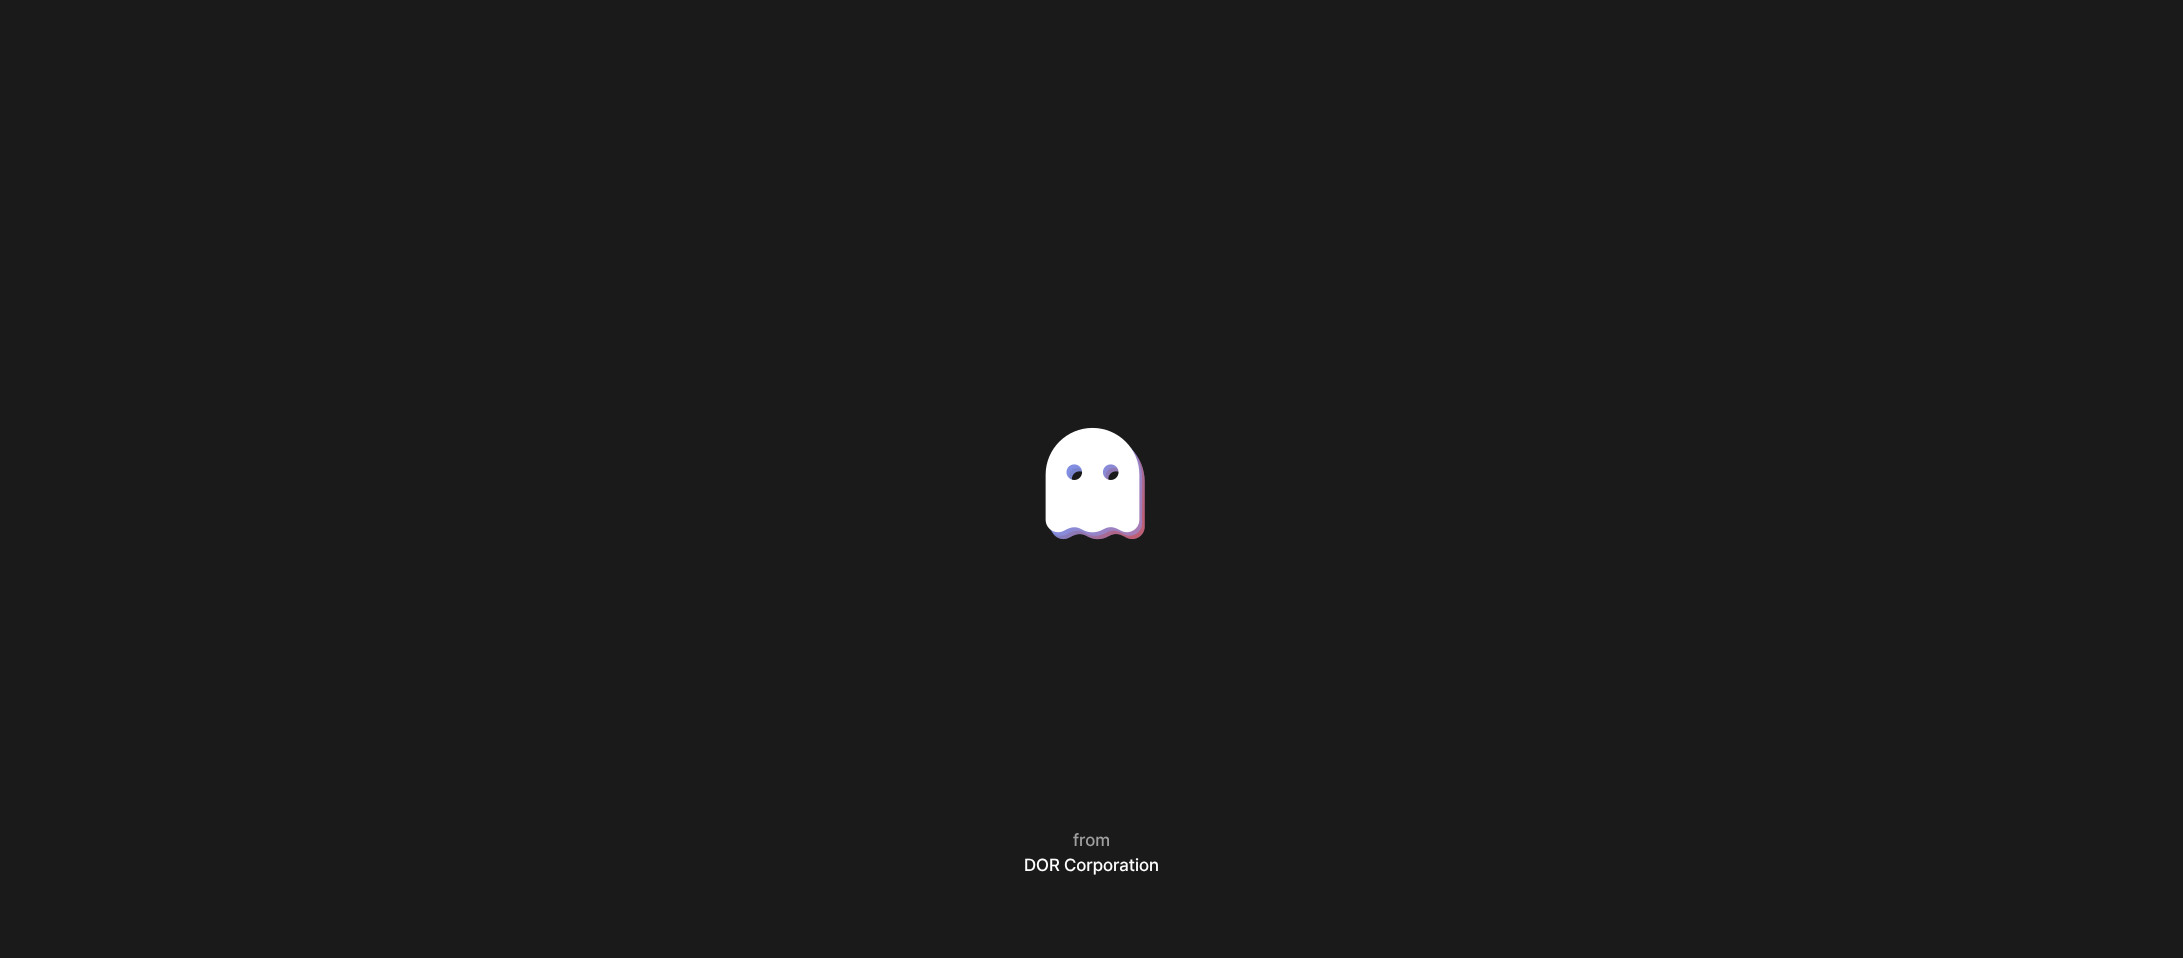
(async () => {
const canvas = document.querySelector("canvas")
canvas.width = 2183
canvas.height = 958
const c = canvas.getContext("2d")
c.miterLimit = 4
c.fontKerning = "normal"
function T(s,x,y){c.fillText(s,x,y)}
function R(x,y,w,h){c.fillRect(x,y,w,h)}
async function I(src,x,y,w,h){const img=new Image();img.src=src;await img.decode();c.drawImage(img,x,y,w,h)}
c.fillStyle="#1a1a1a"
R(0,0,2183,958)
await I("1.png",1045,427,100,113)
c.font="500 17.5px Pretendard"
c.fillStyle="#9e9e9e"
T("from",1073,846)
c.fillStyle="#fff"
T("DOR Corporation",1024,871)
})()
